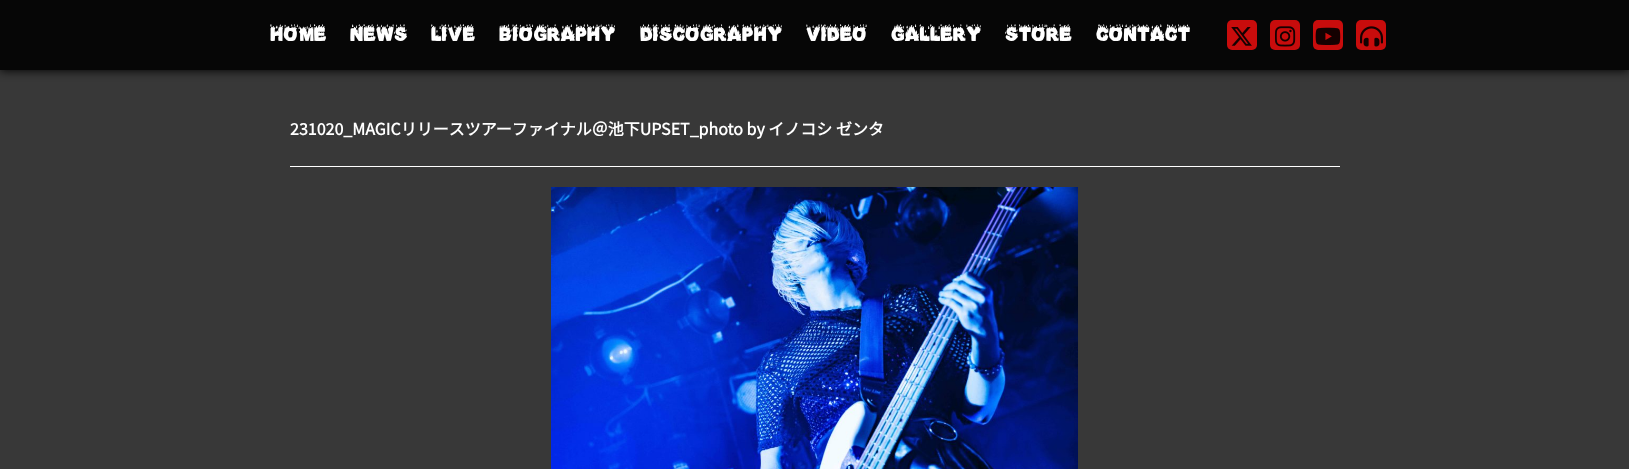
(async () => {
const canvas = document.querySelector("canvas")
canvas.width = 1629
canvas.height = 469
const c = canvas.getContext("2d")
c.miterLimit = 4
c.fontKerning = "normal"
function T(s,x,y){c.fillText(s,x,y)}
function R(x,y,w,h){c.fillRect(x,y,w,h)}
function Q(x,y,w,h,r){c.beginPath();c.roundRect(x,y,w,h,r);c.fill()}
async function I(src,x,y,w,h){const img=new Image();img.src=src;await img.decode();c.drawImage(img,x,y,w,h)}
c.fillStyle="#383838"
R(0,0,1629,469)
c.fillStyle="#000000e6"
c.filter="blur(5px)"
c.beginPath()
c.rect(0,1,1629,70)
c.fill()
c.filter="none"
c.fillStyle="#060606"
R(0,0,1629,70)
c.font="20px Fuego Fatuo"
c.fillStyle="#fff"
T("HOME",270,41)
T("NEWS",350,41)
T("LIVE",431,41)
T("BIOGRAPHY",499,41)
T("DISCOGRAPHY",640,41)
T("VIDEO",806,41)
T("GALLERY",891,41)
T("STORE",1005,41)
T("CONTACT",1096,41)
c.fillStyle="#c80c0c"
Q(1227,20,30,30,5)
await I("1.png",1231,27,21,19)
Q(1270,20,30,30,5)
await I("2.png",1275,26,21,21)
Q(1313,20,30,30,5)
await I("3.png",1315,27,26,18)
Q(1356,20,30,30,5)
await I("4.png",1360,26,23,21)
c.fillStyle="#fff"
R(290,166,1050,1)
c.font="bold 16px Noto Sans JP"
T("231020_MAGICリリースツアーファイナル＠池下UPSET_photo by イノコシ ゼンタ",290,135)
await I("5.png",551,187,527,282)
})()
